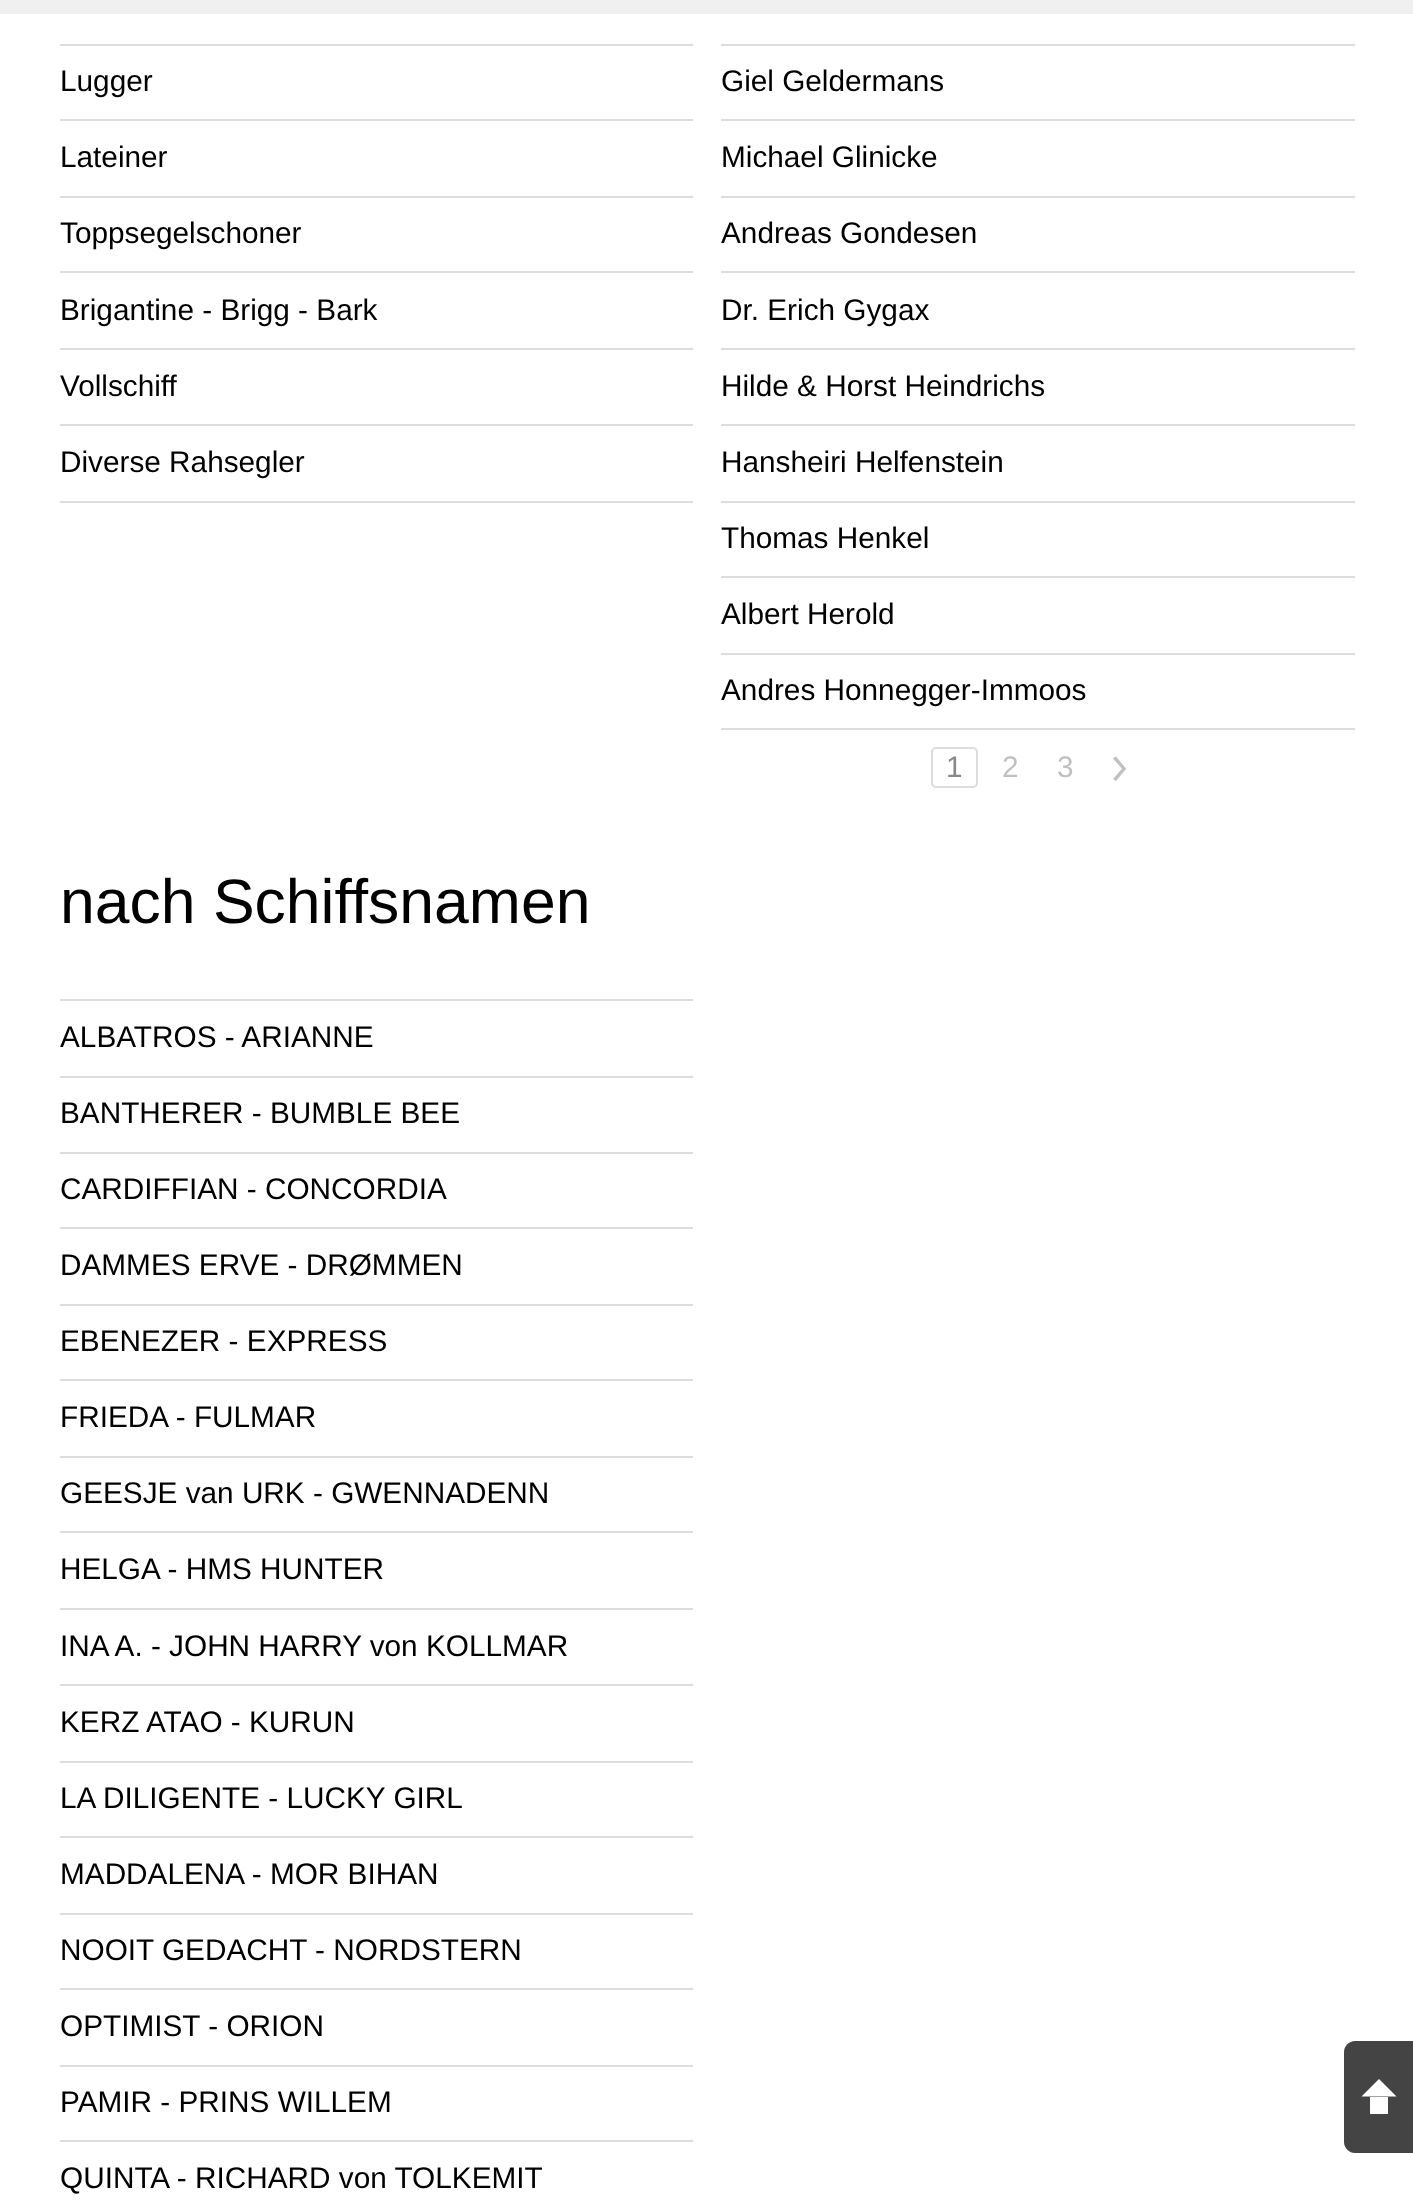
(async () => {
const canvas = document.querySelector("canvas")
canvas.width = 1413
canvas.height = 2208
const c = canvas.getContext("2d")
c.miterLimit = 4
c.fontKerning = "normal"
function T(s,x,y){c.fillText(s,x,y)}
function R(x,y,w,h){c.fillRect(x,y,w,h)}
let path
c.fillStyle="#fff"
R(0,0,1413,2208)
c.fillStyle="#f0f0f0"
R(0,0,1413,14)
c.fillStyle="#ddd"
R(60,44,633,2)
R(60,119,633,2)
c.font="29.75px Liberation Sans"
c.fillStyle="#000"
T("Lugger",60,91)
c.fillStyle="#ddd"
R(60,196,633,2)
c.fillStyle="#000"
T("Lateiner",60,167)
c.fillStyle="#ddd"
R(60,271,633,2)
c.fillStyle="#000"
T("Toppsegelschoner",60,243)
c.fillStyle="#ddd"
R(60,348,633,2)
c.fillStyle="#000"
T("Brigantine - Brigg - Bark",60,320)
c.fillStyle="#ddd"
R(60,424,633,2)
c.fillStyle="#000"
T("Vollschiff",60,396)
c.fillStyle="#ddd"
R(60,501,633,2)
c.fillStyle="#000"
T("Diverse Rahsegler",60,472)
c.fillStyle="#ddd"
R(721,44,634,2)
R(721,119,634,2)
c.fillStyle="#000"
T("Giel Geldermans",721,91)
c.fillStyle="#ddd"
R(721,196,634,2)
c.fillStyle="#000"
T("Michael Glinicke",721,167)
c.fillStyle="#ddd"
R(721,271,634,2)
c.fillStyle="#000"
T("Andreas Gondesen",721,243)
c.fillStyle="#ddd"
R(721,348,634,2)
c.fillStyle="#000"
T("Dr. Erich Gygax",721,320)
c.fillStyle="#ddd"
R(721,424,634,2)
c.fillStyle="#000"
T("Hilde & Horst Heindrichs",721,396)
c.fillStyle="#ddd"
R(721,501,634,2)
c.fillStyle="#000"
T("Hansheiri Helfenstein",721,472)
c.fillStyle="#ddd"
R(721,576,634,2)
c.fillStyle="#000"
T("Thomas Henkel",721,548)
c.fillStyle="#ddd"
R(721,653,634,2)
c.fillStyle="#000"
T("Albert Herold",721,624)
c.fillStyle="#ddd"
R(721,728,634,2)
c.fillStyle="#000"
T("Andres Honnegger-Immoos",721,700)
c.beginPath()
c.roundRect(932,748,45,39,4)
c.strokeStyle="#ddd"
c.lineWidth=2
c.stroke()
c.fillStyle="#888"
T("1",946,777)
c.fillStyle="#c0c0c0"
T("2",1002,777)
T("3",1057,777)
path = new Path2D("M1116 756.5l10 12l-2.5 2l-10.5-12z")
c.fill(path)
path = new Path2D("M1113 779l10.5-12l2.5 2l-10 12z")
c.fill(path)
c.font="62.5px Liberation Sans"
c.fillStyle="#000"
T("nach Schiffsnamen",60,923)
c.fillStyle="#ddd"
R(60,999,633,2)
R(60,1076,633,2)
c.font="29.75px Liberation Sans"
c.fillStyle="#000"
T("ALBATROS - ARIANNE",60,1047)
c.fillStyle="#ddd"
R(60,1152,633,2)
c.fillStyle="#000"
T("BANTHERER - BUMBLE BEE",60,1123)
c.fillStyle="#ddd"
R(60,1227,633,2)
c.fillStyle="#000"
T("CARDIFFIAN - CONCORDIA",60,1199)
c.fillStyle="#ddd"
R(60,1304,633,2)
c.fillStyle="#000"
T("DAMMES ERVE - DRØMMEN",60,1275)
c.fillStyle="#ddd"
R(60,1379,633,2)
c.fillStyle="#000"
T("EBENEZER - EXPRESS",60,1351)
c.fillStyle="#ddd"
R(60,1456,633,2)
c.fillStyle="#000"
T("FRIEDA - FULMAR",60,1427)
c.fillStyle="#ddd"
R(60,1531,633,2)
c.fillStyle="#000"
T("GEESJE van URK - GWENNADENN",60,1503)
c.fillStyle="#ddd"
R(60,1608,633,2)
c.fillStyle="#000"
T("HELGA - HMS HUNTER",60,1579)
c.fillStyle="#ddd"
R(60,1684,633,2)
c.fillStyle="#000"
T("INA A. - JOHN HARRY von KOLLMAR",60,1656)
c.fillStyle="#ddd"
R(60,1761,633,2)
c.fillStyle="#000"
T("KERZ ATAO - KURUN",60,1732)
c.fillStyle="#ddd"
R(60,1836,633,2)
c.fillStyle="#000"
T("LA DILIGENTE - LUCKY GIRL",60,1808)
c.fillStyle="#ddd"
R(60,1913,633,2)
c.fillStyle="#000"
T("MADDALENA - MOR BIHAN",60,1884)
c.fillStyle="#ddd"
R(60,1988,633,2)
c.fillStyle="#000"
T("NOOIT GEDACHT - NORDSTERN",60,1960)
c.fillStyle="#ddd"
R(60,2065,633,2)
c.fillStyle="#000"
T("OPTIMIST - ORION",60,2036)
c.fillStyle="#ddd"
R(60,2140,633,2)
c.fillStyle="#000"
T("PAMIR - PRINS WILLEM",60,2112)
T("QUINTA - RICHARD von TOLKEMIT",60,2188)
c.fillStyle="#444"
path = new Path2D("M1355 2041h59v112h-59c-6 0-11-5-11-11v-90c0-6 5-11 11-11z")
c.fill(path)
c.fillStyle="#fff"
path = new Path2D("M1396.5 2096.5h-35l17.5-17.5z")
c.fill(path)
R(1370,2097,18,17)
})()
